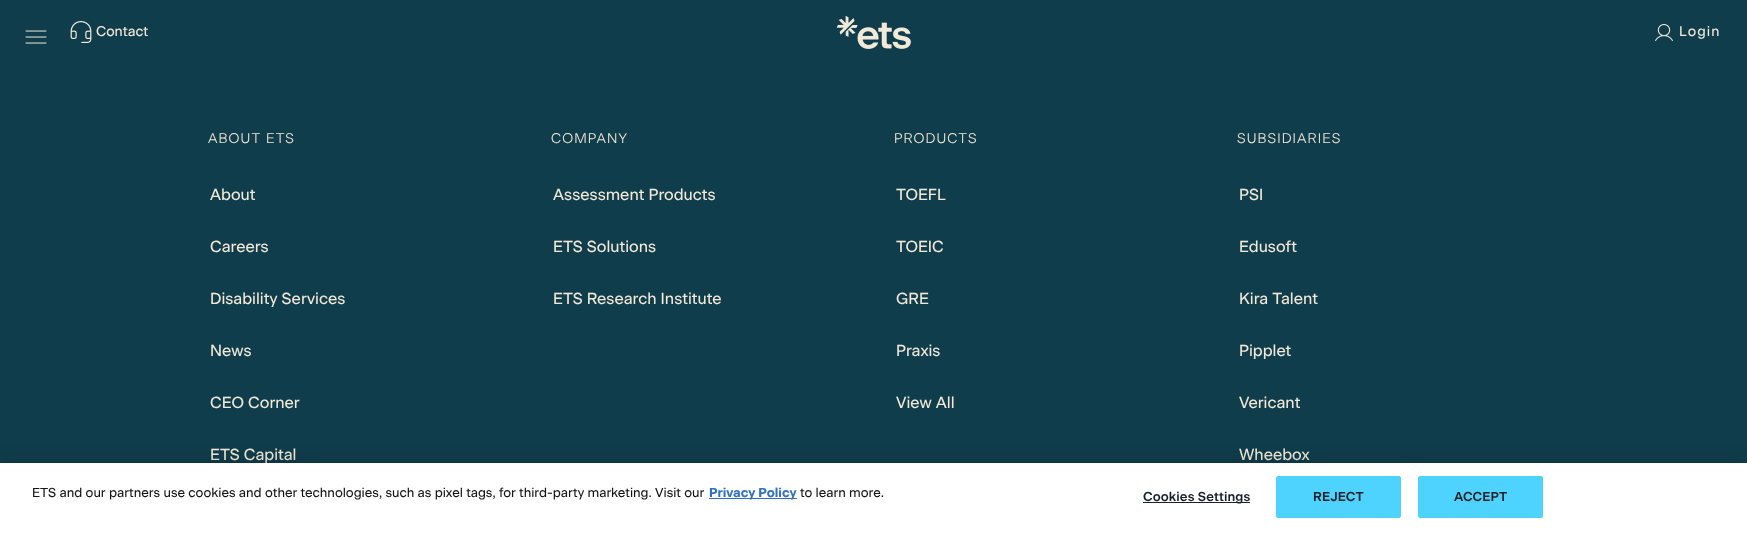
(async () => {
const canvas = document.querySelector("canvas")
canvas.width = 1747
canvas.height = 534
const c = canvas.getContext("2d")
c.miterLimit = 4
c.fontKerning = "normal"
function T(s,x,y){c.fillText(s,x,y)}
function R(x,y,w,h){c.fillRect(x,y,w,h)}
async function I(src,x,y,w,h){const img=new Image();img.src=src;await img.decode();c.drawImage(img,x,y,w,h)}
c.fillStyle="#103d4b"
R(0,0,1747,534)
await I("1.png",25,30,22,14)
await I("2.png",70,21,22,22)
c.font="14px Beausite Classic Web"
c.fillStyle="#f2e9d8"
T("Contact",96,36)
await I("3.png",836,16,75,33)
await I("4.png",1655,24,18,17)
c.letterSpacing="1.1px"
T("Login",1679,36)
c.font="300 14px Beausite Classic Web"
T("ABOUT ETS",208,143)
c.letterSpacing="0px"
c.font="16px Beausite Classic Web"
T("About",210,200)
T("Careers",210,252)
T("Disability Services",210,304)
T("News",210,356)
T("CEO Corner",210,408)
T("ETS Capital",210,460)
c.letterSpacing="1.1px"
c.font="300 14px Beausite Classic Web"
T("COMPANY",551,143)
c.letterSpacing="0px"
c.font="16px Beausite Classic Web"
T("Assessment Products",553,200)
T("ETS Solutions",553,252)
T("ETS Research Institute",553,304)
c.letterSpacing="1.1px"
c.font="300 14px Beausite Classic Web"
T("PRODUCTS",894,143)
c.letterSpacing="0px"
c.font="16px Beausite Classic Web"
T("TOEFL",896,200)
T("TOEIC",896,252)
T("GRE",896,304)
T("Praxis",896,356)
T("View All",896,408)
c.letterSpacing="1.1px"
c.font="300 14px Beausite Classic Web"
T("SUBSIDIARIES",1237,143)
c.letterSpacing="0px"
c.font="16px Beausite Classic Web"
T("PSI",1239,200)
T("Edusoft",1239,252)
T("Kira Talent",1239,304)
T("Pipplet",1239,356)
T("Vericant",1239,408)
T("Wheebox",1239,460)
c.fillStyle="#00000033"
c.filter="blur(9px)"
c.beginPath()
c.rect(0,463,1747,71)
c.fill()
c.filter="none"
c.fillStyle="#fff"
R(0,463,1747,71)
c.font="13px Beausite Classic Web"
c.fillStyle="#151515"
T("ETS and our partners use cookies and other technologies, such as pixel tags,",32,497)
T("for third-party marketing. Visit our",499,497)
c.fillStyle="#3072be"
R(709,498,88,1)
c.font="bold 13px Beausite Classic Web"
T("Privacy Policy",709,497)
c.font="13px Beausite Classic Web"
c.fillStyle="#151515"
T("to learn more.",800,497)
c.fillStyle="#1a212b"
R(1143,502,107,1)
c.letterSpacing="0.1px"
c.font="600 13px Beausite Classic Web"
T("Cookies Settings",1143,501)
c.fillStyle="#4dd3fe"
c.beginPath()
c.roundRect(1276.5,476.5,124,41,1.5)
c.fill()
c.strokeStyle="#4dd3fe"
c.stroke()
c.fillStyle="#1a212b"
T("REJECT",1313,501)
c.fillStyle="#4dd3fe"
c.beginPath()
c.roundRect(1418.5,476.5,124,41,1.5)
c.fill()
c.stroke()
c.fillStyle="#1a212b"
T("ACCEPT",1454,501)
})()
